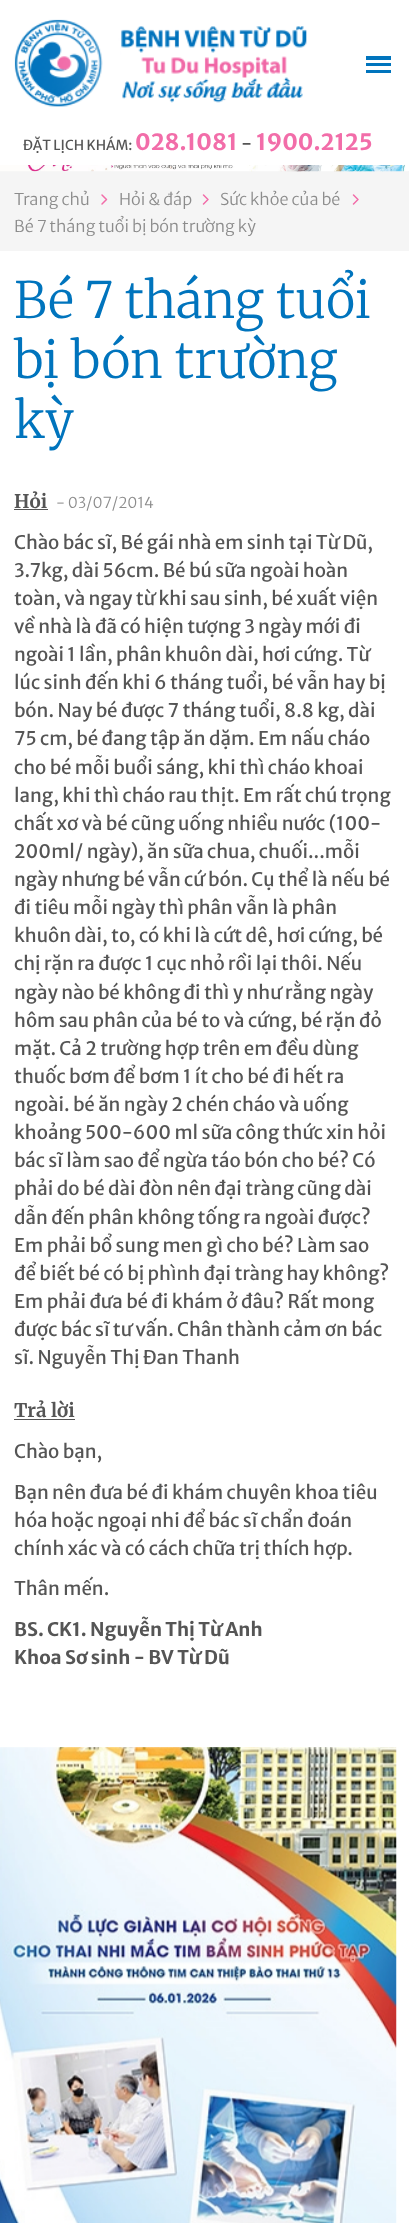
(async () => {
const canvas = document.querySelector("canvas")
canvas.width = 409
canvas.height = 2223
const c = canvas.getContext("2d")
c.miterLimit = 4
c.fontKerning = "normal"
function T(s,x,y){c.fillText(s,x,y)}
function R(x,y,w,h){c.fillRect(x,y,w,h)}
async function I(src,x,y,w,h){const img=new Image();img.src=src;await img.decode();c.drawImage(img,x,y,w,h)}
let path
c.fillStyle="#fff"
R(0,0,409,2223)
await I("1.png",14,19,293,88)
c.fillStyle="#0074bd"
R(366,56,25,4)
R(366,63,25,3)
R(366,70,25,3)
c.fillStyle="#f5f5f5"
R(0,171,409,80)
await I("2.png",0,163,408,9)
c.fillStyle="#fff"
path = new Path2D("M-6 125h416v34c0 3.5-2.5 6-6 6h-404c-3.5 0-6-2.5-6-6z")
c.fill(path)
c.font="13.75px Merriweather Sans"
c.fillStyle="#555"
T("ĐẶT LỊCH KHÁM:",23,150)
c.font="bold 22.5px Merriweather Sans"
c.fillStyle="#f26da9"
T("028.1081",135,150)
c.font="18.75px Merriweather Sans"
c.fillStyle="#555"
T("-",241,150)
c.font="bold 22.5px Merriweather Sans"
c.fillStyle="#f26da9"
T("1900.2125",256,150)
c.font="300 16.25px Merriweather Sans"
c.fillStyle="#8c8c8c"
T("Trang chủ",14,205)
path = new Path2D("M102 195l4.5 4.5l-4.5 4.5")
c.strokeStyle="#f26da9"
c.lineWidth=1.5
c.lineCap="round"
c.lineJoin="round"
c.stroke(path)
T("Hỏi & đáp",119,205)
path = new Path2D("M203.5 195l4.5 4.5l-4.5 4.5")
c.stroke(path)
T("Sức khỏe của bé",220,205)
path = new Path2D("M353.5 195l4.5 4.5l-4.5 4.5")
c.stroke(path)
T("Bé 7 tháng tuổi bị bón trường kỳ",14,232)
c.font="300 50px Merriweather"
c.fillStyle="#0074bd"
T("Bé 7 tháng tuổi",14,318)
T("bị bón trường",14,378)
T("kỳ",14,438)
c.font="bold 18.75px Merriweather"
c.fillStyle="#555"
T("Hỏi",14,508)
R(14,509,34,1)
c.font="300 15px Merriweather Sans"
c.fillStyle="#8c8c8c"
T("- 03/07/2014",56,508)
c.font="18.75px Merriweather Sans"
c.fillStyle="#555"
T("Chào bác sĩ, Bé gái nhà em sinh tại Từ Dũ,",14,549)
T("3.7kg, dài 56cm. Bé bú sữa ngoài hoàn",14,577)
T("toàn, và ngay từ khi sau sinh, bé xuất viện",14,605)
T("về nhà là đã có hiện tượng 3 ngày mới đi",14,633)
T("ngoài 1 lần, phân khuôn dài, hơi cứng. Từ",14,661)
T("lúc sinh đến khi 6 tháng tuổi, bé vẫn hay bị",14,689)
T("bón. Nay bé được 7 tháng tuổi, 8.8 kg, dài",14,717)
T("75 cm, bé đang tập ăn dặm. Em nấu cháo",14,745)
T("cho bé mỗi buổi sáng, khi thì cháo khoai",14,774)
T("lang, khi thì cháo rau thịt. Em rất chú trọng",14,802)
T("chất xơ và bé cũng uống nhiều nước (100-",14,830)
T("200ml/ ngày), ăn sữa chua, chuối...mỗi",14,858)
T("ngày nhưng bé vẫn cứ bón. Cụ thể là nếu bé",14,886)
T("đi tiêu mỗi ngày thì phân vẫn là phân",14,914)
T("khuôn dài, to, có khi là cứt dê, hơi cứng, bé",14,942)
T("chị rặn ra được 1 cục nhỏ rồi lại thôi. Nếu",14,970)
T("ngày nào bé không đi thì y như rằng ngày",14,999)
T("hôm sau phân của bé to và cứng, bé rặn đỏ",14,1027)
T("mặt. Cả 2 trường hợp trên em đều dùng",14,1055)
T("thuốc bơm để bơm 1 ít cho bé đi hết ra",14,1083)
T("ngoài. bé ăn ngày 2 chén cháo và uống",14,1111)
T("khoảng 500-600 ml sữa công thức xin hỏi",14,1139)
T("bác sĩ làm sao để ngừa táo bón cho bé? Có",14,1167)
T("phải do bé dài đòn nên đại tràng cũng dài",14,1195)
T("dẫn đến phân không tống ra ngoài được?",14,1224)
T("Em phải bổ sung men gì cho bé? Làm sao",14,1252)
T("để biết bé có bị phình đại tràng hay không?",14,1280)
T("Em phải đưa bé đi khám ở đâu? Rất mong",14,1308)
T("được bác sĩ tư vấn. Chân thành cảm ơn bác",14,1336)
T("sĩ. Nguyễn Thị Đan Thanh",14,1364)
c.font="bold 18.75px Merriweather"
T("Trả lời",14,1417)
R(14,1419,61,1)
c.font="18.75px Merriweather Sans"
T("Chào bạn,",14,1458)
T("Bạn nên đưa bé đi khám chuyên khoa tiêu",14,1499)
T("hóa hoặc ngoại nhi để bác sĩ chẩn đoán",14,1527)
T("chính xác và có cách chữa trị thích hợp.",14,1555)
T("Thân mến.",14,1595)
c.font="bold 18.75px Merriweather Sans"
T("BS. CK1. Nguyễn Thị Từ Anh",14,1636)
T("Khoa Sơ sinh - BV Từ Dũ",14,1664)
await I("3.png",0,1747,397,476)
})()
